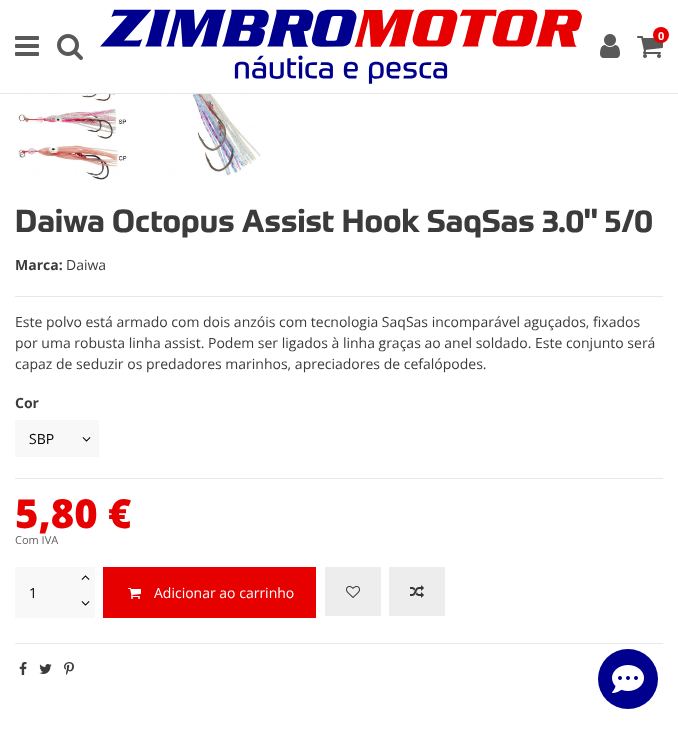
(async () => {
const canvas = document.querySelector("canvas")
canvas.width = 678
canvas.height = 729
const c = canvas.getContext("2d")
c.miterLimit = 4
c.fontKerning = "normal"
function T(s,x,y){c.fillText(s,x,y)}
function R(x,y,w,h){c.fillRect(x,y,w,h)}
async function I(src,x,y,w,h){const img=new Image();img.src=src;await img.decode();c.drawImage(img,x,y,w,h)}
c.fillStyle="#fff"
R(0,0,678,729)
c.fillStyle="#e6e6e6"
R(0,93,678,1)
await I("1.png",15,36,24,20)
await I("2.png",57,34,26,26)
await I("3.png",100,9,482,75)
await I("4.png",600,34,20,24)
await I("5.png",637,36,26,22)
c.fillStyle="#e60000"
c.beginPath()
c.arc(661,35,8,0,7)
c.fill()
c.font="bold 11px Open Sans"
c.fillStyle="#fff"
T("0",658,40)
await I("6.png",17,94,112,86)
await I("7.png",159,94,102,83)
c.fillStyle="#e8e8e8"
R(15,296,648,1)
c.font="bold 31.25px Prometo"
c.fillStyle="#3b3b3b"
T("Daiwa Octopus Assist Hook SaqSas 3.0\" 5/0",15,232)
c.font="bold 14px Open Sans"
T("Marca:",15,270)
c.font="14px Open Sans"
T("Daiwa",66,270)
T("Este polvo está armado com dois anzóis com tecnologia SaqSas incomparável aguçados, fixados",15,327)
T("por uma robusta linha assist. Podem ser ligados à linha graças ao anel soldado. Este conjunto será",15,348)
T("capaz de seduzir os predadores marinhos, apreciadores de cefalópodes.",15,369)
c.font="bold 14px Open Sans"
T("Cor",15,408)
c.fillStyle="#f8f8f8"
R(15,420,84,37)
c.font="14px Open Sans"
c.fillStyle="#000"
T("SBP",29,444)
await I("8.png",82,437,9,5)
c.fillStyle="#e8e8e8"
R(15,478,648,1)
c.font="800 40px Open Sans"
c.fillStyle="#e60000"
T("5,80 €",15,528)
c.font="11px Open Sans"
c.fillStyle="#626262"
T("Com IVA",15,544)
c.fillStyle="#f8f8f8"
R(15,567,60,51)
c.font="14px Open Sans"
c.fillStyle="#000"
T("1",29,598)
c.fillStyle="#f8f8f8"
R(75,567,20,51)
await I("9.png",81,575,9,5)
await I("8.png",81,601,9,5)
c.fillStyle="#e60000"
R(103,567,213,51)
await I("10.png",128,588,13,11)
c.fillStyle="#fff"
T("Adicionar ao carrinho",154,598)
c.fillStyle="#ededed"
R(325,567,56,49)
await I("11.png",346,586,14,12)
R(389,567,56,49)
await I("12.png",410,585,14,13)
c.fillStyle="#e8e8e8"
R(15,643,648,1)
await I("13.png",19,662,8,13)
await I("14.png",39,664,13,10)
await I("15.png",64,662,10,13)
c.fillStyle="#00008e"
c.beginPath()
c.arc(628,679,30,0,7)
c.fill()
await I("16.png",612,665,32,28)
})()
